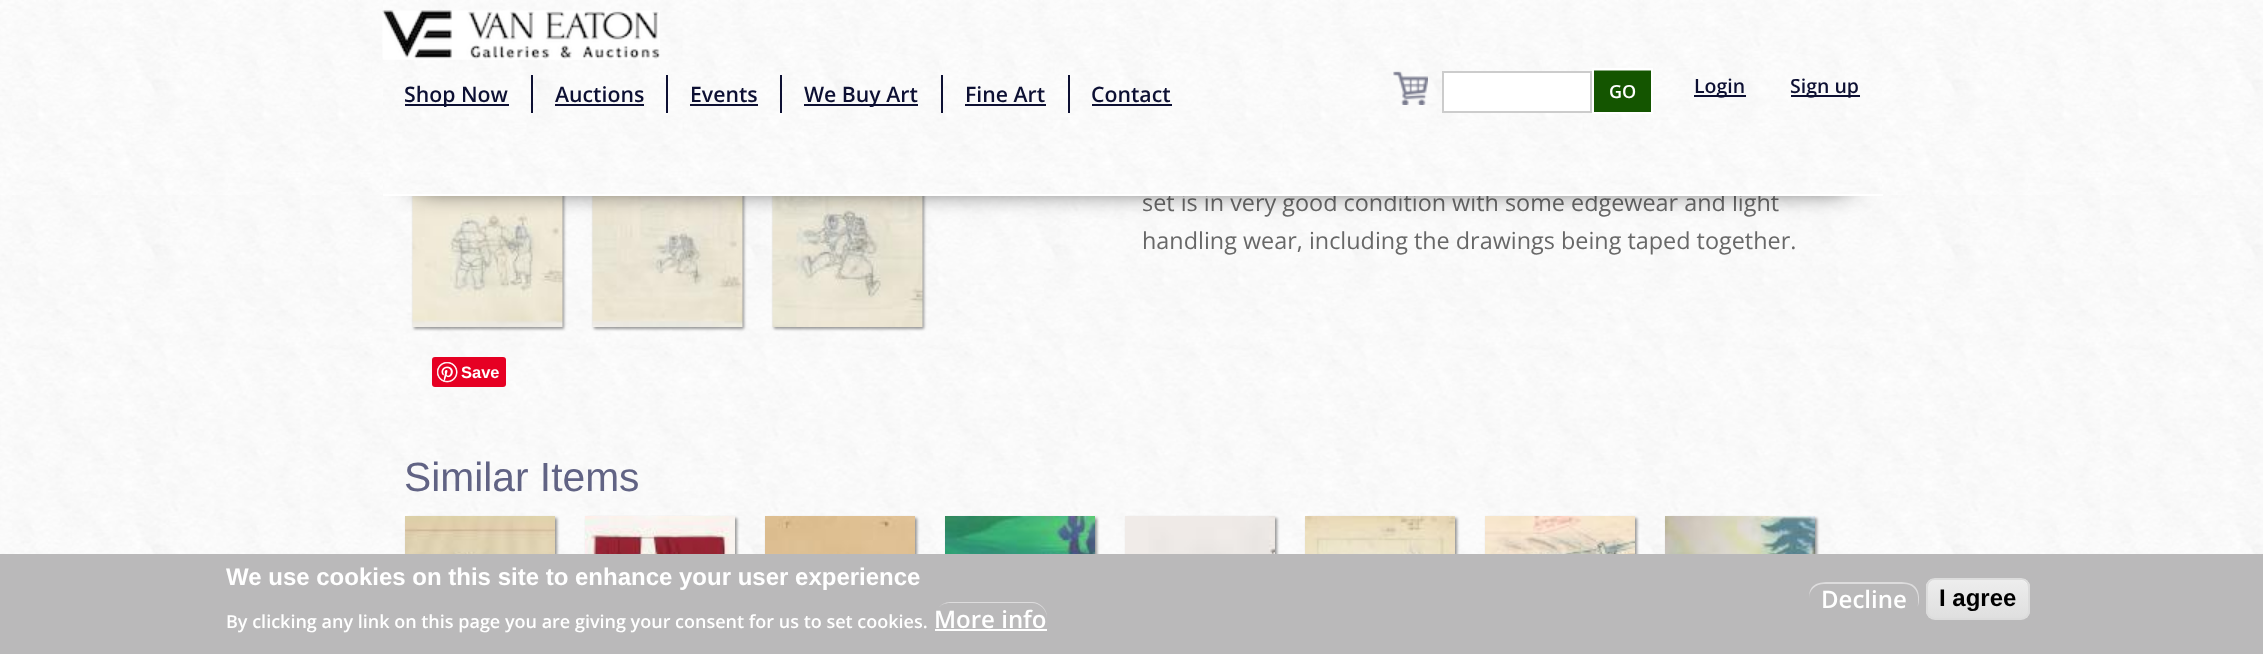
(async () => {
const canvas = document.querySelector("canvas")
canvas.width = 2263
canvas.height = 654
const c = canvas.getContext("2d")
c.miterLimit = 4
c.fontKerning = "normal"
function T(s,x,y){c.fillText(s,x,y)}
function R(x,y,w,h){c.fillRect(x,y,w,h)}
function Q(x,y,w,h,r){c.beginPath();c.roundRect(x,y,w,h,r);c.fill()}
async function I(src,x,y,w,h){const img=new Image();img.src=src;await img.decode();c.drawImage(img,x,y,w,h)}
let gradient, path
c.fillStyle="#fff"
R(0,0,2263,654)
await I("1.png",0,195,2263,359)
c.fillStyle="#00000066"
c.filter="blur(1.5px)"
c.beginPath()
c.rect(414,179,150,150)
c.fill()
c.filter="none"
c.filter="blur(1.5px)"
c.beginPath()
c.rect(594,179,150,150)
c.fill()
c.filter="none"
c.filter="blur(1.5px)"
c.beginPath()
c.rect(774,179,150,150)
c.fill()
c.filter="none"
c.font="23.4px Open Sans"
c.fillStyle="#686868"
T("set is in very good condition with some edgewear and light",1142,211)
await I("2.png",0,0,2263,195)
await I("6.png",412,196,151,131)
await I("7.png",592,196,151,131)
await I("8.png",772,196,151,131)
c.fillStyle="#000"
c.filter="blur(14px)"
c.beginPath()
c.rect(417,60,1431,126)
c.fill()
c.filter="none"
await I("3.png",383,0,1499,194)
c.fillStyle="#fff"
R(383,194,1500,2)
await I("4.png",382,10,278,50)
await I("5.png",1393,71,35,34)
c.fillStyle="#0d1033"
R(405,104,104,2)
c.font="600 21.25px Open Sans"
T("Shop Now",404,102)
R(531,75,2,38)
T("Auctions",555,102)
R(555,104,89,2)
R(666,75,2,38)
T("Events",690,102)
R(690,104,68,2)
R(780,75,2,38)
R(804,104,114,2)
T("We Buy Art",804,102)
R(941,75,2,38)
T("Fine Art",965,102)
R(965,104,81,2)
R(1068,75,2,38)
T("Contact",1091,102)
R(1092,104,80,2)
R(1694,95,52,2)
c.font="600 19.5px Open Sans"
T("Login",1694,93)
R(1791,95,69,2)
T("Sign up",1790,93)
c.fillStyle="#fff"
c.beginPath()
c.rect(1443,72,148,40)
c.fill()
c.strokeStyle="#ccc"
c.lineWidth=2
c.stroke()
c.fillStyle="#145500"
R(1594,71,57,41)
c.fillStyle="#8aaa80"
R(1593,70,59,1)
c.strokeStyle="#fff"
c.strokeRect(1593,69,59,44)
c.font="600 18px Open Sans"
c.fillStyle="#fff"
T("GO",1609,98)
c.font="23.4px Open Sans"
c.fillStyle="#686868"
T("handling wear, including the drawings being taped together.",1142,249)
c.fillStyle="#e60023"
Q(432,357,74,30,3)
await I("9.png",437,362,21,21)
c.font="bold 16.5px Liberation Sans"
c.fillStyle="#fff"
T("Save",461,378)
c.font="40.75px Liberation Sans"
c.fillStyle="#616384"
T("Similar Items",404,491)
c.fillStyle="#00000066"
c.filter="blur(1.5px)"
c.beginPath()
c.rect(407,518,150,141)
c.fill()
c.filter="none"
await I("10.png",405,516,150,38)
c.filter="blur(1.5px)"
c.beginPath()
c.rect(587,518,150,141)
c.fill()
c.filter="none"
await I("11.png",585,516,150,38)
c.filter="blur(1.5px)"
c.beginPath()
c.rect(767,518,150,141)
c.fill()
c.filter="none"
await I("12.png",765,516,150,38)
c.filter="blur(1.5px)"
c.beginPath()
c.rect(947,518,150,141)
c.fill()
c.filter="none"
await I("13.png",945,516,150,38)
c.filter="blur(1.5px)"
c.beginPath()
c.rect(1127,518,150,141)
c.fill()
c.filter="none"
await I("14.png",1125,516,150,38)
c.filter="blur(1.5px)"
c.beginPath()
c.rect(1307,518,150,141)
c.fill()
c.filter="none"
await I("15.png",1305,516,150,38)
c.filter="blur(1.5px)"
c.beginPath()
c.rect(1487,518,150,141)
c.fill()
c.filter="none"
await I("16.png",1485,516,150,38)
c.filter="blur(1.5px)"
c.beginPath()
c.rect(1667,518,150,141)
c.fill()
c.filter="none"
await I("17.png",1665,516,150,38)
c.fillStyle="#bab9ba"
R(0,554,2263,100)
c.font="bold 24px Liberation Sans"
c.fillStyle="#fff"
T("We use cookies on this site to enhance your user experience",226,585)
c.font="600 18px Open Sans"
T("By clicking any link on this page you are giving your consent for us to set cookies.",226,628)
c.fillStyle="#dddcdd"
path = new Path2D("M950 603h82c8 0 15 7 15 15v-1c0-8-7-15-15-15h-82c-5 0-10 3-12 7c2-4 7-6 12-6z")
c.fill(path)
c.font="600 24px Open Sans"
c.fillStyle="#fff"
T("More info",934,628)
R(935,629,112,2)
c.fillStyle="#dddcdd"
path = new Path2D("M1824 584h80c8 0 14 6 14 14v4c0 2 0 4-1 6c2-4 2-7 2-11c-1-17-16-15-28-15h-54c-13 0-28-2-28 16c0-8 7-14 15-14z")
c.fill(path)
c.fillStyle="#fff"
T("Decline",1821,608)
c.save()
c.beginPath()
c.roundRect(1926,578,104,42,9)
c.clip()
gradient = c.createLinearGradient(1978,579,1978,618)
gradient.addColorStop(.05,"#ededed")
gradient.addColorStop(1,"#dfdfdf")
c.fillStyle = gradient
R(1926,579,104,39)
c.restore()
path = new Path2D("M1935 580h85c5 0 8 4 8 8c0-12-14-9-22-9h-56c-8 0-22-3-22 9c0-4 3-8 7-8z")
c.fill(path)
c.beginPath()
c.roundRect(1927,579,102,40,8)
c.strokeStyle="#dcdcdc"
c.stroke()
c.font="bold 24px Liberation Sans"
c.fillStyle="#000"
T("I agree",1939,606)
})()
